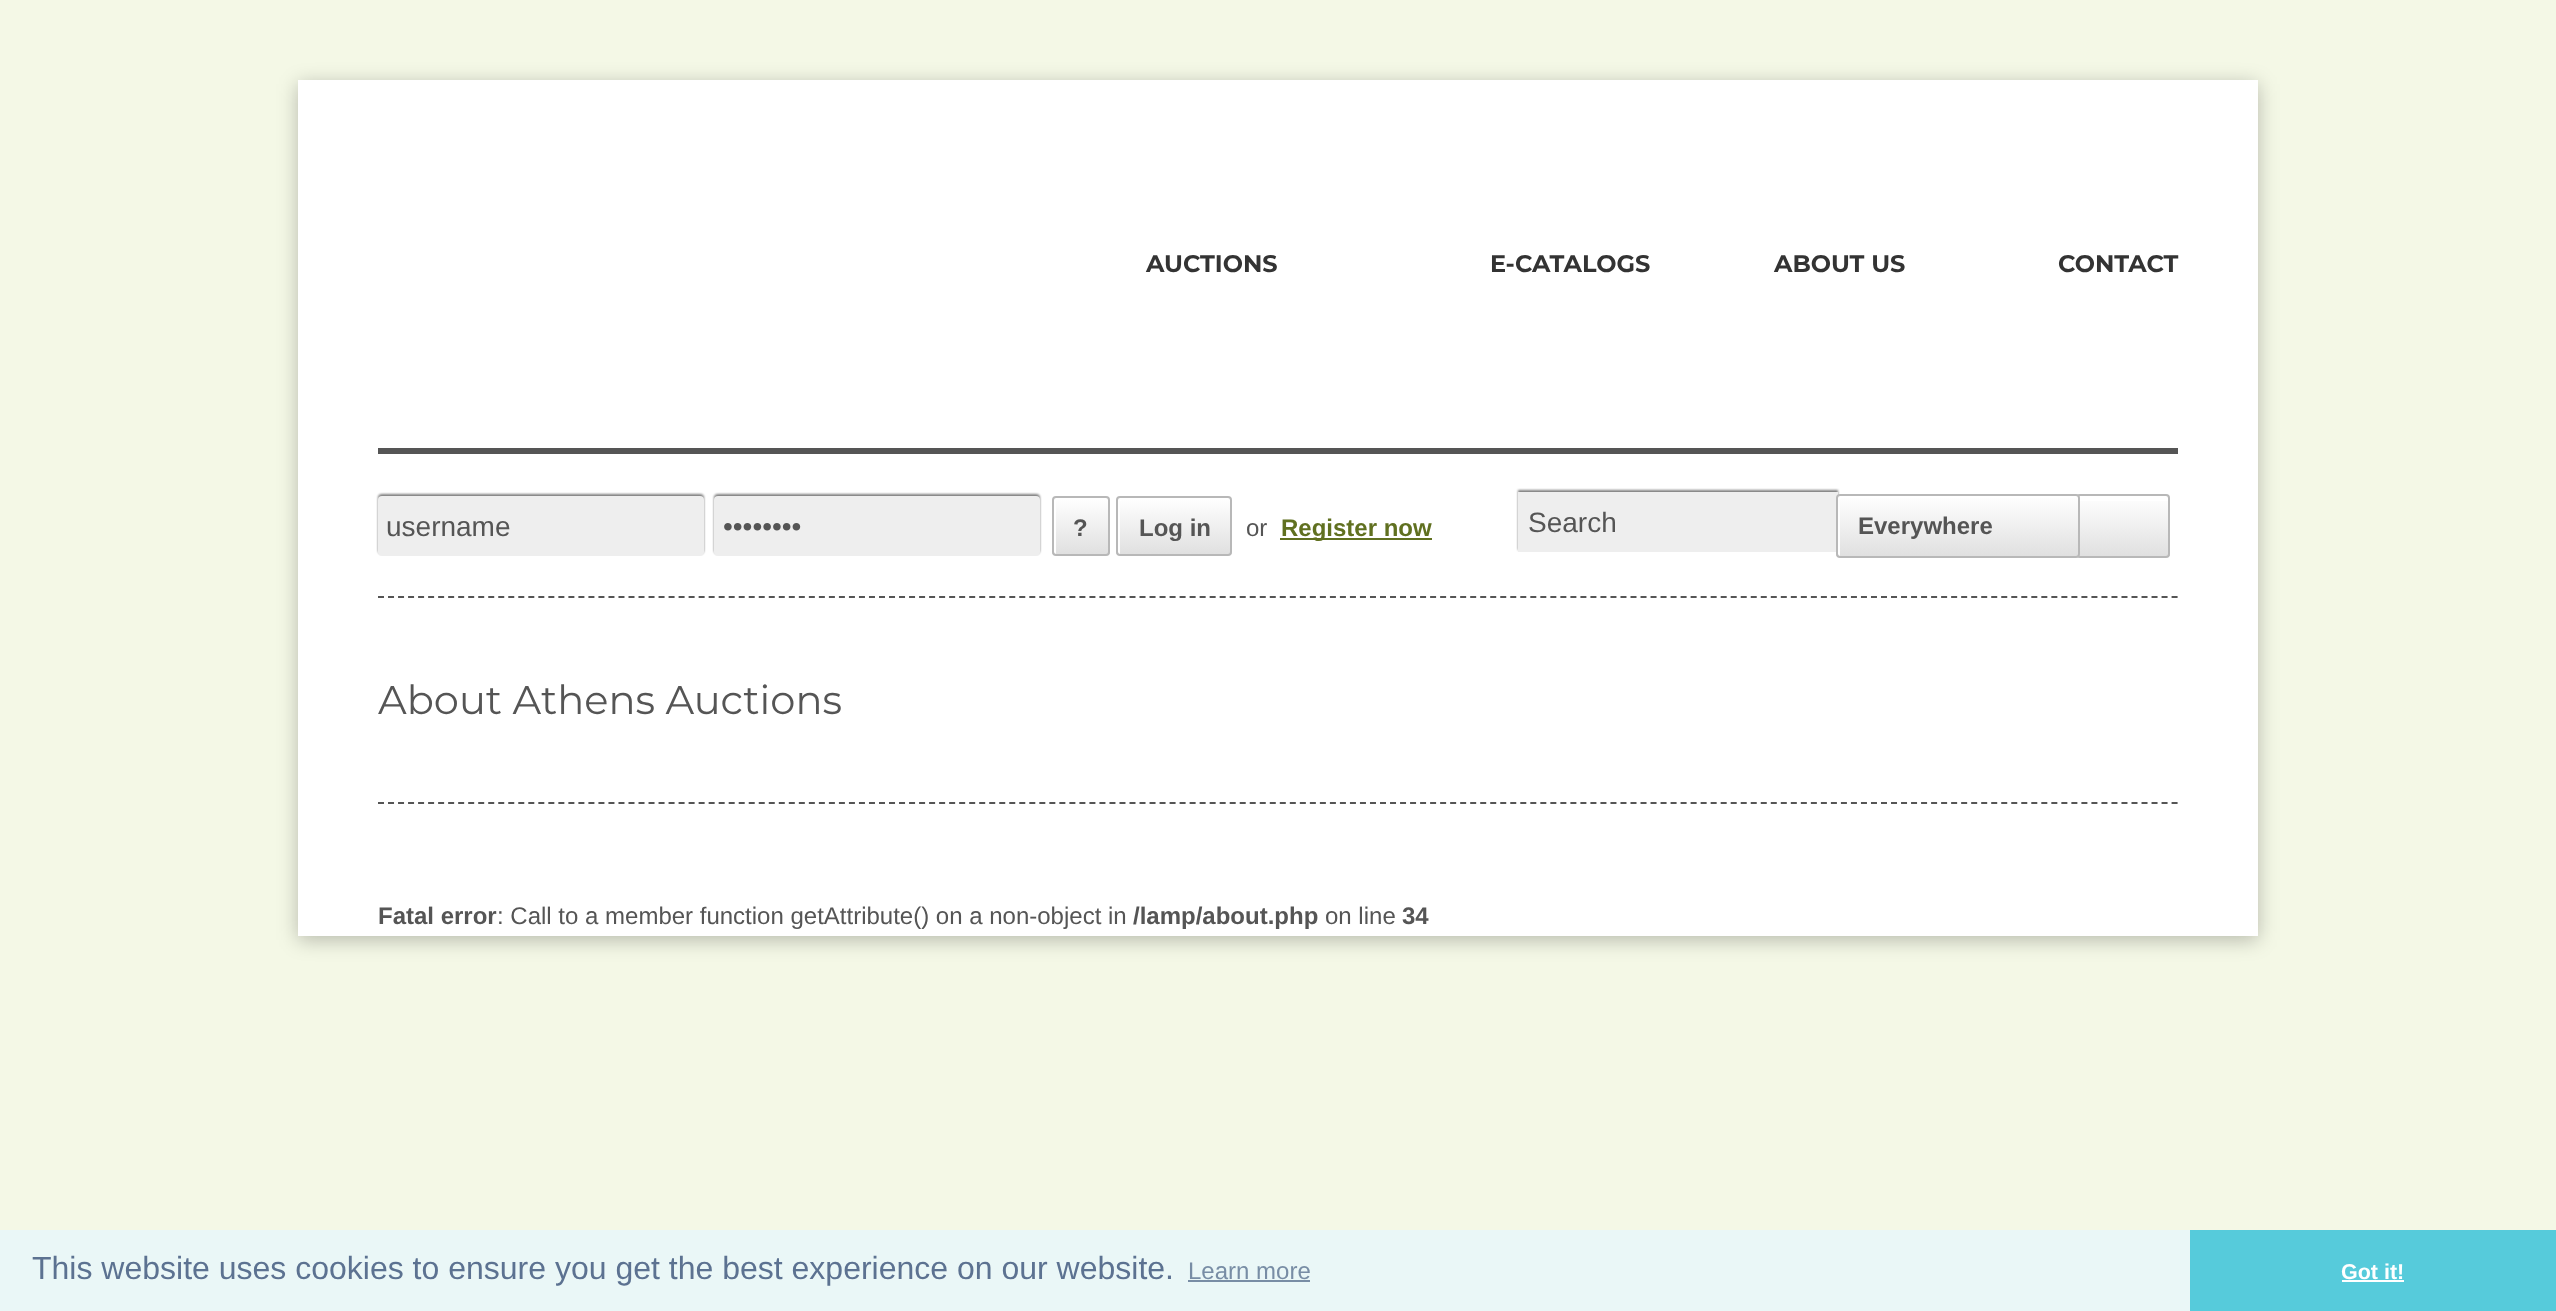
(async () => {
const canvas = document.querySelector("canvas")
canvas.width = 2556
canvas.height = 1311
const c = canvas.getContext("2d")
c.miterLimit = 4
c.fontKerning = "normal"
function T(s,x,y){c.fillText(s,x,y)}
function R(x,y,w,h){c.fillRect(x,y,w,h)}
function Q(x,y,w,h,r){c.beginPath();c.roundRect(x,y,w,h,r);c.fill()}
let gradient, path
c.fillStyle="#f4f8e6"
R(0,0,2556,1311)
c.fillStyle="#00000040"
c.filter="blur(10px)"
c.beginPath()
c.rect(298,84,1960,856)
c.fill()
c.filter="none"
c.fillStyle="#fff"
R(298,80,1960,856)
c.font="bold 24px Montserrat"
c.fillStyle="#333"
T("AUCTIONS",1146,272)
T("E-CATALOGS",1490,272)
T("ABOUT US",1774,272)
T("CONTACT",2058,272)
c.fillStyle="#555"
R(378,448,1800,6)
c.fillStyle="#00000080"
c.filter="blur(1px)"
c.beginPath()
c.roundRect(378,494,326,60,4)
c.fill()
c.filter="none"
c.fillStyle="#eee"
Q(378,496,326,60,4)
c.font="28px Liberation Sans"
c.fillStyle="#555"
T("username",386,536)
c.fillStyle="#00000080"
c.filter="blur(1px)"
c.beginPath()
c.roundRect(714,494,326,60,4)
c.fill()
c.filter="none"
c.fillStyle="#eee"
Q(714,496,326,60,4)
c.fillStyle="#555"
T("••••••••",723,536)
c.save()
c.beginPath()
c.roundRect(1052,496,58,60,4)
c.clip()
gradient = c.createLinearGradient(1054,498,1054,554)
gradient.addColorStop(0,"#fff")
gradient.addColorStop(1,"#e0e0e0")
c.fillStyle = gradient
R(1052,498,58,56)
c.restore()
c.fillStyle="#fff"
path = new Path2D("M1058 500h50c0-1-1-2-2-2h-50c-1 0-2 1-2 2v52c0 1 1 2 2 2v-53z")
c.fill(path)
c.beginPath()
c.roundRect(1053,497,56,58,3)
c.strokeStyle="#b8b8b8"
c.lineWidth=2
c.stroke()
c.font="bold 24px Liberation Sans"
c.fillStyle="#555"
T("?",1073,536)
c.save()
c.beginPath()
c.roundRect(1116,496,116,60,4)
c.clip()
gradient = c.createLinearGradient(1118,498,1118,554)
gradient.addColorStop(0,"#fff")
gradient.addColorStop(1,"#e0e0e0")
c.fillStyle = gradient
R(1116,498,116,56)
c.restore()
c.fillStyle="#fff"
path = new Path2D("M1122 500h108c0-1-1-2-2-2h-108c-1 0-2 1-2 2v52c0 1 1 2 2 2v-52c0-1 1-2 2-2z")
c.fill(path)
c.beginPath()
c.roundRect(1117,497,114,58,3)
c.stroke()
c.fillStyle="#555"
T("Log in",1139,536)
c.font="24px Liberation Sans"
T("or",1246,536)
c.fillStyle="#607020"
R(1280,538,152,2)
c.font="bold 24px Liberation Sans"
T("Register now",1281,536)
c.fillStyle="#00000080"
c.filter="blur(1px)"
c.beginPath()
c.rect(1518,490,320,60)
c.fill()
c.filter="none"
c.fillStyle="#eee"
R(1518,492,320,60)
c.font="28px Liberation Sans"
c.fillStyle="#555"
T("Search",1528,532)
gradient = c.createLinearGradient(2078,496,2078,556)
gradient.addColorStop(0,"#fff")
gradient.addColorStop(1,"#e0e0e0")
c.fillStyle = gradient
R(2079,501,91,55)
c.fillStyle="#fff"
path = new Path2D("M2082 498h86c0-1-1-2-2-2h-86c-1 0-2 1-2 2v56c0 1 1 2 2 2v-57z")
c.fill(path)
c.beginPath()
c.roundRect(2077,495,92,62,3)
c.stroke()
c.save()
c.beginPath()
c.roundRect(1836,494,244,64,4)
c.clip()
gradient = c.createLinearGradient(1838,496,1838,556)
gradient.addColorStop(0,"#fff")
gradient.addColorStop(1,"#e0e0e0")
c.fillStyle = gradient
R(1836,496,244,60)
c.restore()
path = new Path2D("M1842 498h236c0-1-1-2-2-2h-236c-1 0-2 1-2 2v56c0 1 1 2 2 2v-56c0-1 1-2 2-2z")
c.fill(path)
c.beginPath()
c.roundRect(1837,495,242,62,3)
c.stroke()
c.font="bold 24px Liberation Sans"
c.fillStyle="#555"
T("Everywhere",1858,534)
path = new Path2D("M378 597h1800")
c.strokeStyle="#555"
c.setLineDash([6,4.02])
c.stroke(path)
c.font="40px Montserrat"
T("About Athens Auctions",378,714)
path = new Path2D("M378 803h1800")
c.stroke(path)
c.font="bold 24px Liberation Sans"
T("Fatal error",378,924)
c.font="24px Liberation Sans"
T(": Call to a member function getAttribute() on a non-object in",497,924)
c.font="bold 24px Liberation Sans"
T("/lamp/about.php",1133,924)
c.font="24px Liberation Sans"
T("on line",1325,924)
c.font="bold 24px Liberation Sans"
T("34",1402,924)
c.fillStyle="#eaf7f7"
R(0,1230,2190,81)
c.font="32px Liberation Sans"
c.fillStyle="#5c7291"
T("This website uses cookies to ensure you get the best experience on our website.",32,1279)
c.font="24px Liberation Sans"
c.fillStyle="#788da5"
T("Learn more",1188,1279)
R(1188,1280,122,2)
c.fillStyle="#56cbdb"
R(2190,1230,366,81)
c.font="bold 21.5px Liberation Sans"
c.fillStyle="#fff"
T("Got it!",2341,1279)
R(2342,1280,62,2)
})()
